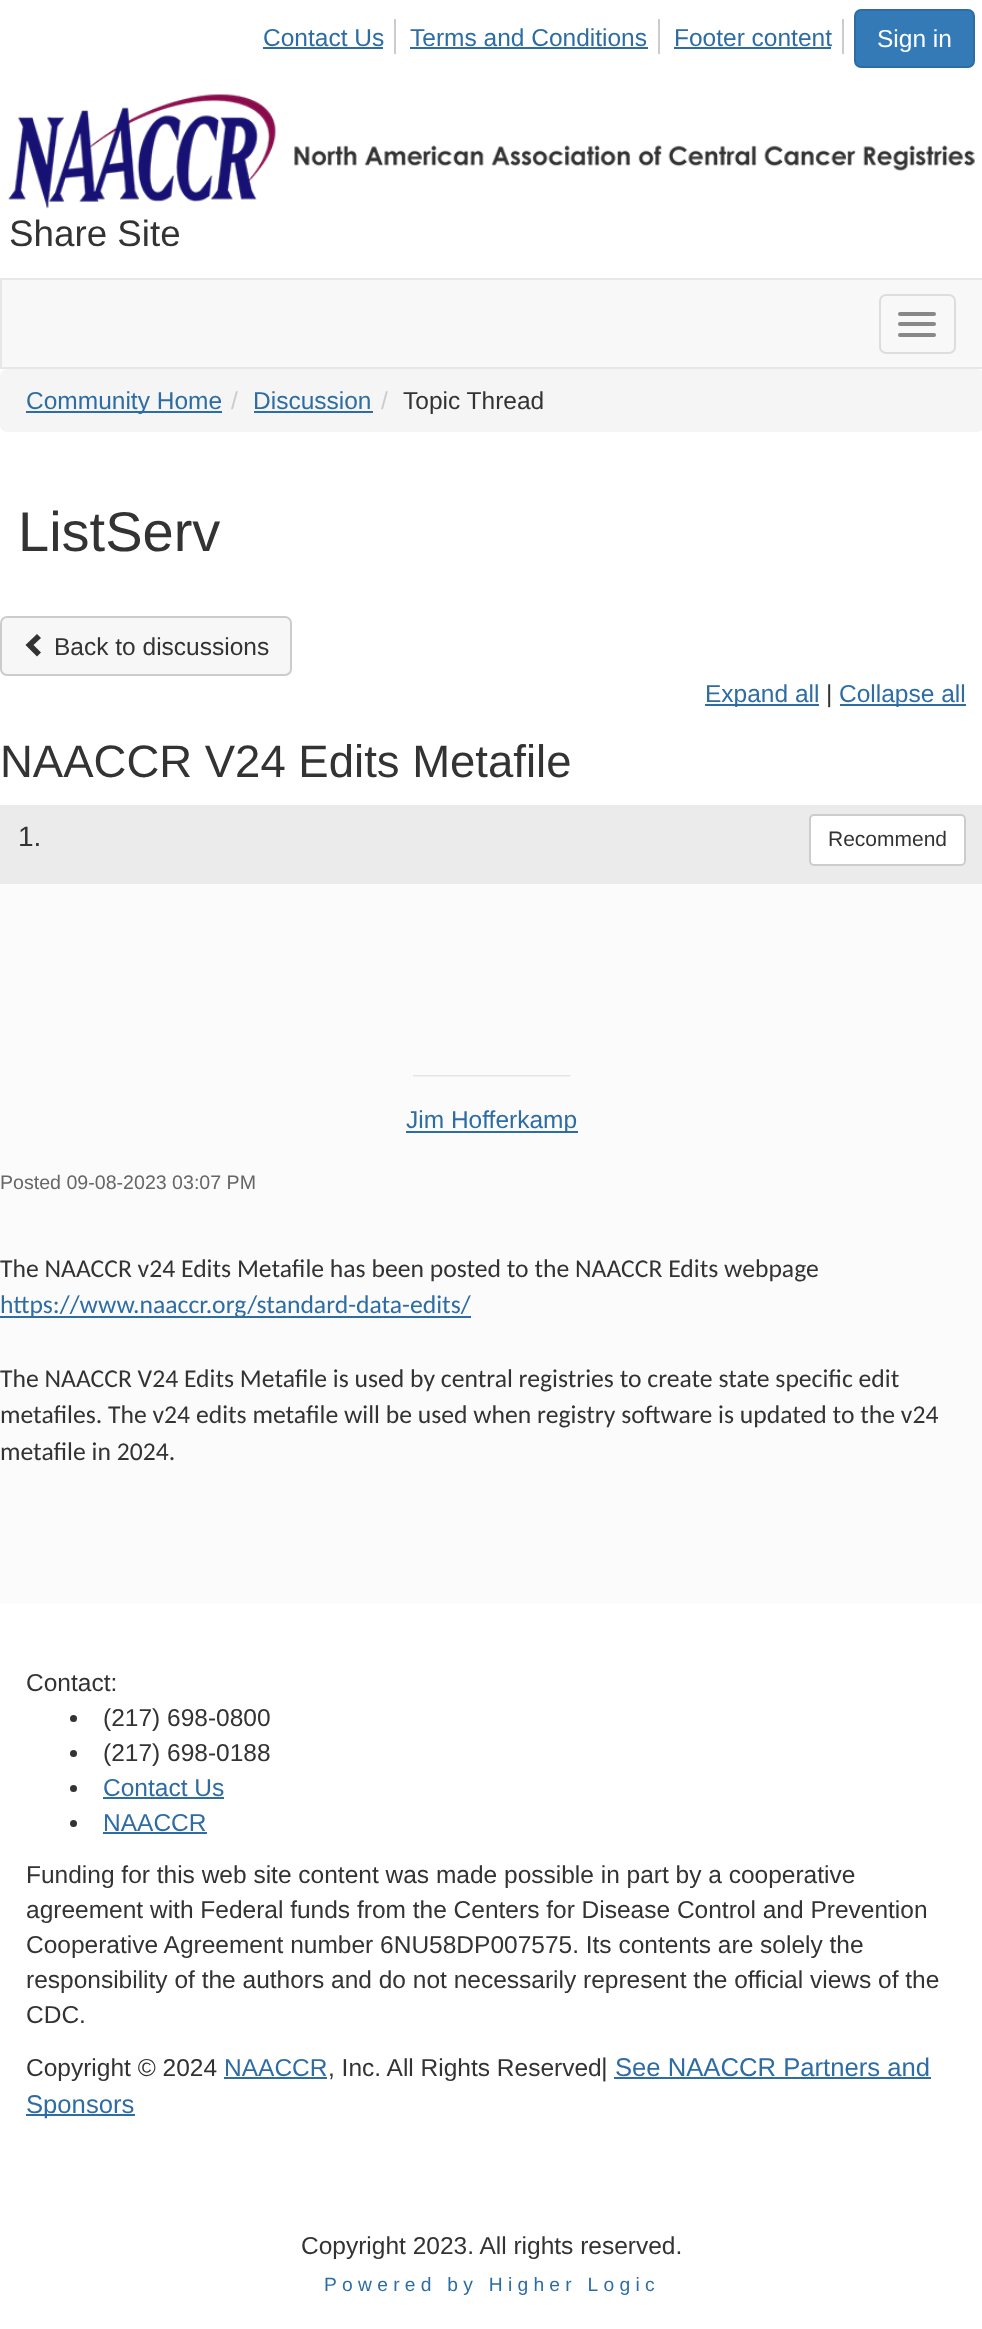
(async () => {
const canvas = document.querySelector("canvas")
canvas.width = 982
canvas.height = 2329
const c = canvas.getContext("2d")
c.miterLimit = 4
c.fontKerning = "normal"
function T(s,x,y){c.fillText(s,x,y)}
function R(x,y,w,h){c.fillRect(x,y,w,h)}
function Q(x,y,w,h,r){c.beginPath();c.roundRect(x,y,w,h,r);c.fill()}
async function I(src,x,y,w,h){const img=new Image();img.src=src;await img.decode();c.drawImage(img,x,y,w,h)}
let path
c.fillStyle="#fff"
R(0,0,982,2329)
c.fillStyle="#ccc"
R(394,19,2,35)
c.font="24.5px Liberation Sans"
c.fillStyle="#2e6da4"
T("Contact Us",263,46)
R(263,47,120,2)
c.fillStyle="#ccc"
R(658,19,2,35)
c.fillStyle="#2e6da4"
T("Terms and Conditions",410,46)
R(410,47,238,2)
c.fillStyle="#ccc"
R(842,19,2,35)
c.fillStyle="#2e6da4"
T("Footer content",674,46)
R(674,47,157,2)
c.fillStyle="#337ab7"
c.beginPath()
c.roundRect(855,10,119,57,6)
c.fill()
c.strokeStyle="#2e6da4"
c.lineWidth=2
c.stroke()
c.fillStyle="#fff"
T("Sign in",877,47)
await I("1.png",8,94,967,115)
c.font="36.75px Liberation Sans"
c.fillStyle="#333"
T("Share Site",9,246)
c.fillStyle="#f8f8f8"
c.beginPath()
c.rect(1,279,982,89)
c.fill()
c.strokeStyle="#e7e7e7"
c.stroke()
c.beginPath()
c.roundRect(880,295,75,58,6)
c.strokeStyle="#ddd"
c.stroke()
c.fillStyle="#888"
Q(898,312,38,4,2)
Q(898,322,38,4,2)
Q(898,333,38,4,2)
c.fillStyle="#f5f5f5"
Q(0,369,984,63,7)
c.fillStyle="#2e6da4"
R(26,411,196,2)
c.font="24.5px Liberation Sans"
T("Community Home",26,409)
c.fillStyle="#ccc"
T("/",231,409)
c.fillStyle="#2e6da4"
T("Discussion",253,409)
R(254,411,119,2)
c.fillStyle="#ccc"
T("/",381,409)
c.fillStyle="#333"
T("Topic Thread",403,409)
c.font="56px Liberation Sans"
T("ListServ",18,551)
c.fillStyle="#f7f7f7"
c.beginPath()
c.roundRect(1,617,290,58,6)
c.fill()
c.strokeStyle="#ccc"
c.stroke()
c.fillStyle="#333"
path = new Path2D("M41 638l-7.5 7l7.5 7.5l-4 4l-11.5-11.5l11.5-11z")
c.fill(path)
c.font="24.5px Liberation Sans"
T("Back to discussions",54,655)
c.fillStyle="#2e6da4"
R(705,704,114,2)
T("Expand all",705,702)
c.fillStyle="#333"
T("|",826,702)
c.fillStyle="#2e6da4"
R(840,704,126,2)
T("Collapse all",839,702)
c.font="45.5px Liberation Sans"
c.fillStyle="#333"
T("NAACCR V24 Edits Metafile",0,777)
c.fillStyle="#fbfbfb"
R(0,884,982,719)
c.fillStyle="#ebebeb"
R(0,805,982,79)
c.font="28px Liberation Sans"
c.fillStyle="#333"
T("1.",18,846)
c.fillStyle="#fff"
c.beginPath()
c.roundRect(810,815,155,50,4)
c.fill()
c.stroke()
c.font="21px Liberation Sans"
c.fillStyle="#333"
T("Recommend",828,846)
await I("2.png",413,1075,158,2)
c.fillStyle="#2e6da4"
R(406,1131,172,2)
c.font="24.5px Liberation Sans"
T("Jim Hofferkamp",406,1128)
c.font="19.6px Liberation Sans"
c.fillStyle="#666"
T("Posted 09-08-2023 03:07 PM",0,1189)
c.font="25.65px Carlito"
c.fillStyle="#333"
T("The NAACCR v24 Edits Metafile has been posted to the NAACCR Edits webpage",0,1277)
c.fillStyle="#2e6da4"
R(0,1316,471,2)
T("https://www.naaccr.org/standard-data-edits/",0,1313)
c.fillStyle="#333"
T("The NAACCR V24 Edits Metafile is used by central registries to create state specific edit",0,1387)
T("metafiles. The v24 edits metafile will be used when registry software is updated to the v24",0,1423)
T("metafile in 2024.",0,1460)
c.font="24.5px Liberation Sans"
T("Contact:",26,1691)
c.beginPath()
c.arc(73.5,1718.5,3.5,0,7)
c.fill()
T("(217) 698-0800",103,1726)
c.beginPath()
c.arc(73.5,1753.5,3.5,0,7)
c.fill()
T("(217) 698-0188",103,1761)
c.beginPath()
c.arc(73.5,1788.5,3.5,0,7)
c.fill()
c.fillStyle="#2e6da4"
T("Contact Us",103,1796)
R(103,1797,121,2)
c.fillStyle="#333"
c.beginPath()
c.arc(73.5,1823.5,3.5,0,7)
c.fill()
c.fillStyle="#2e6da4"
T("NAACCR",103,1831)
R(103,1832,104,2)
c.fillStyle="#333"
T("Funding for this web site content was made possible in part by a cooperative",26,1883)
T("agreement with Federal funds from the Centers for Disease Control and Prevention",26,1918)
T("Cooperative Agreement number 6NU58DP007575. Its contents are solely the",26,1953)
T("responsibility of the authors and do not necessarily represent the official views of the",26,1988)
T("CDC.",26,2023)
T("Copyright © 2024",26,2076)
c.fillStyle="#2e6da4"
T("NAACCR",224,2076)
R(224,2077,103,2)
c.fillStyle="#333"
T(", Inc. All Rights Reserved",328,2076)
c.font="25.65px Liberation Sans"
T("|",601,2076)
c.fillStyle="#2e6da4"
T("See NAACCR Partners and",615,2076)
R(614,2077,317,2)
R(26,2114,109,2)
T("Sponsors",26,2113)
c.font="24.5px Liberation Sans"
c.fillStyle="#333"
T("Copyright 2023. All rights reserved.",301,2254)
c.letterSpacing="5.25px"
c.font="19.25px Liberation Sans"
c.fillStyle="#2e6da4"
T("Powered by Higher Logic",324,2291)
})()
